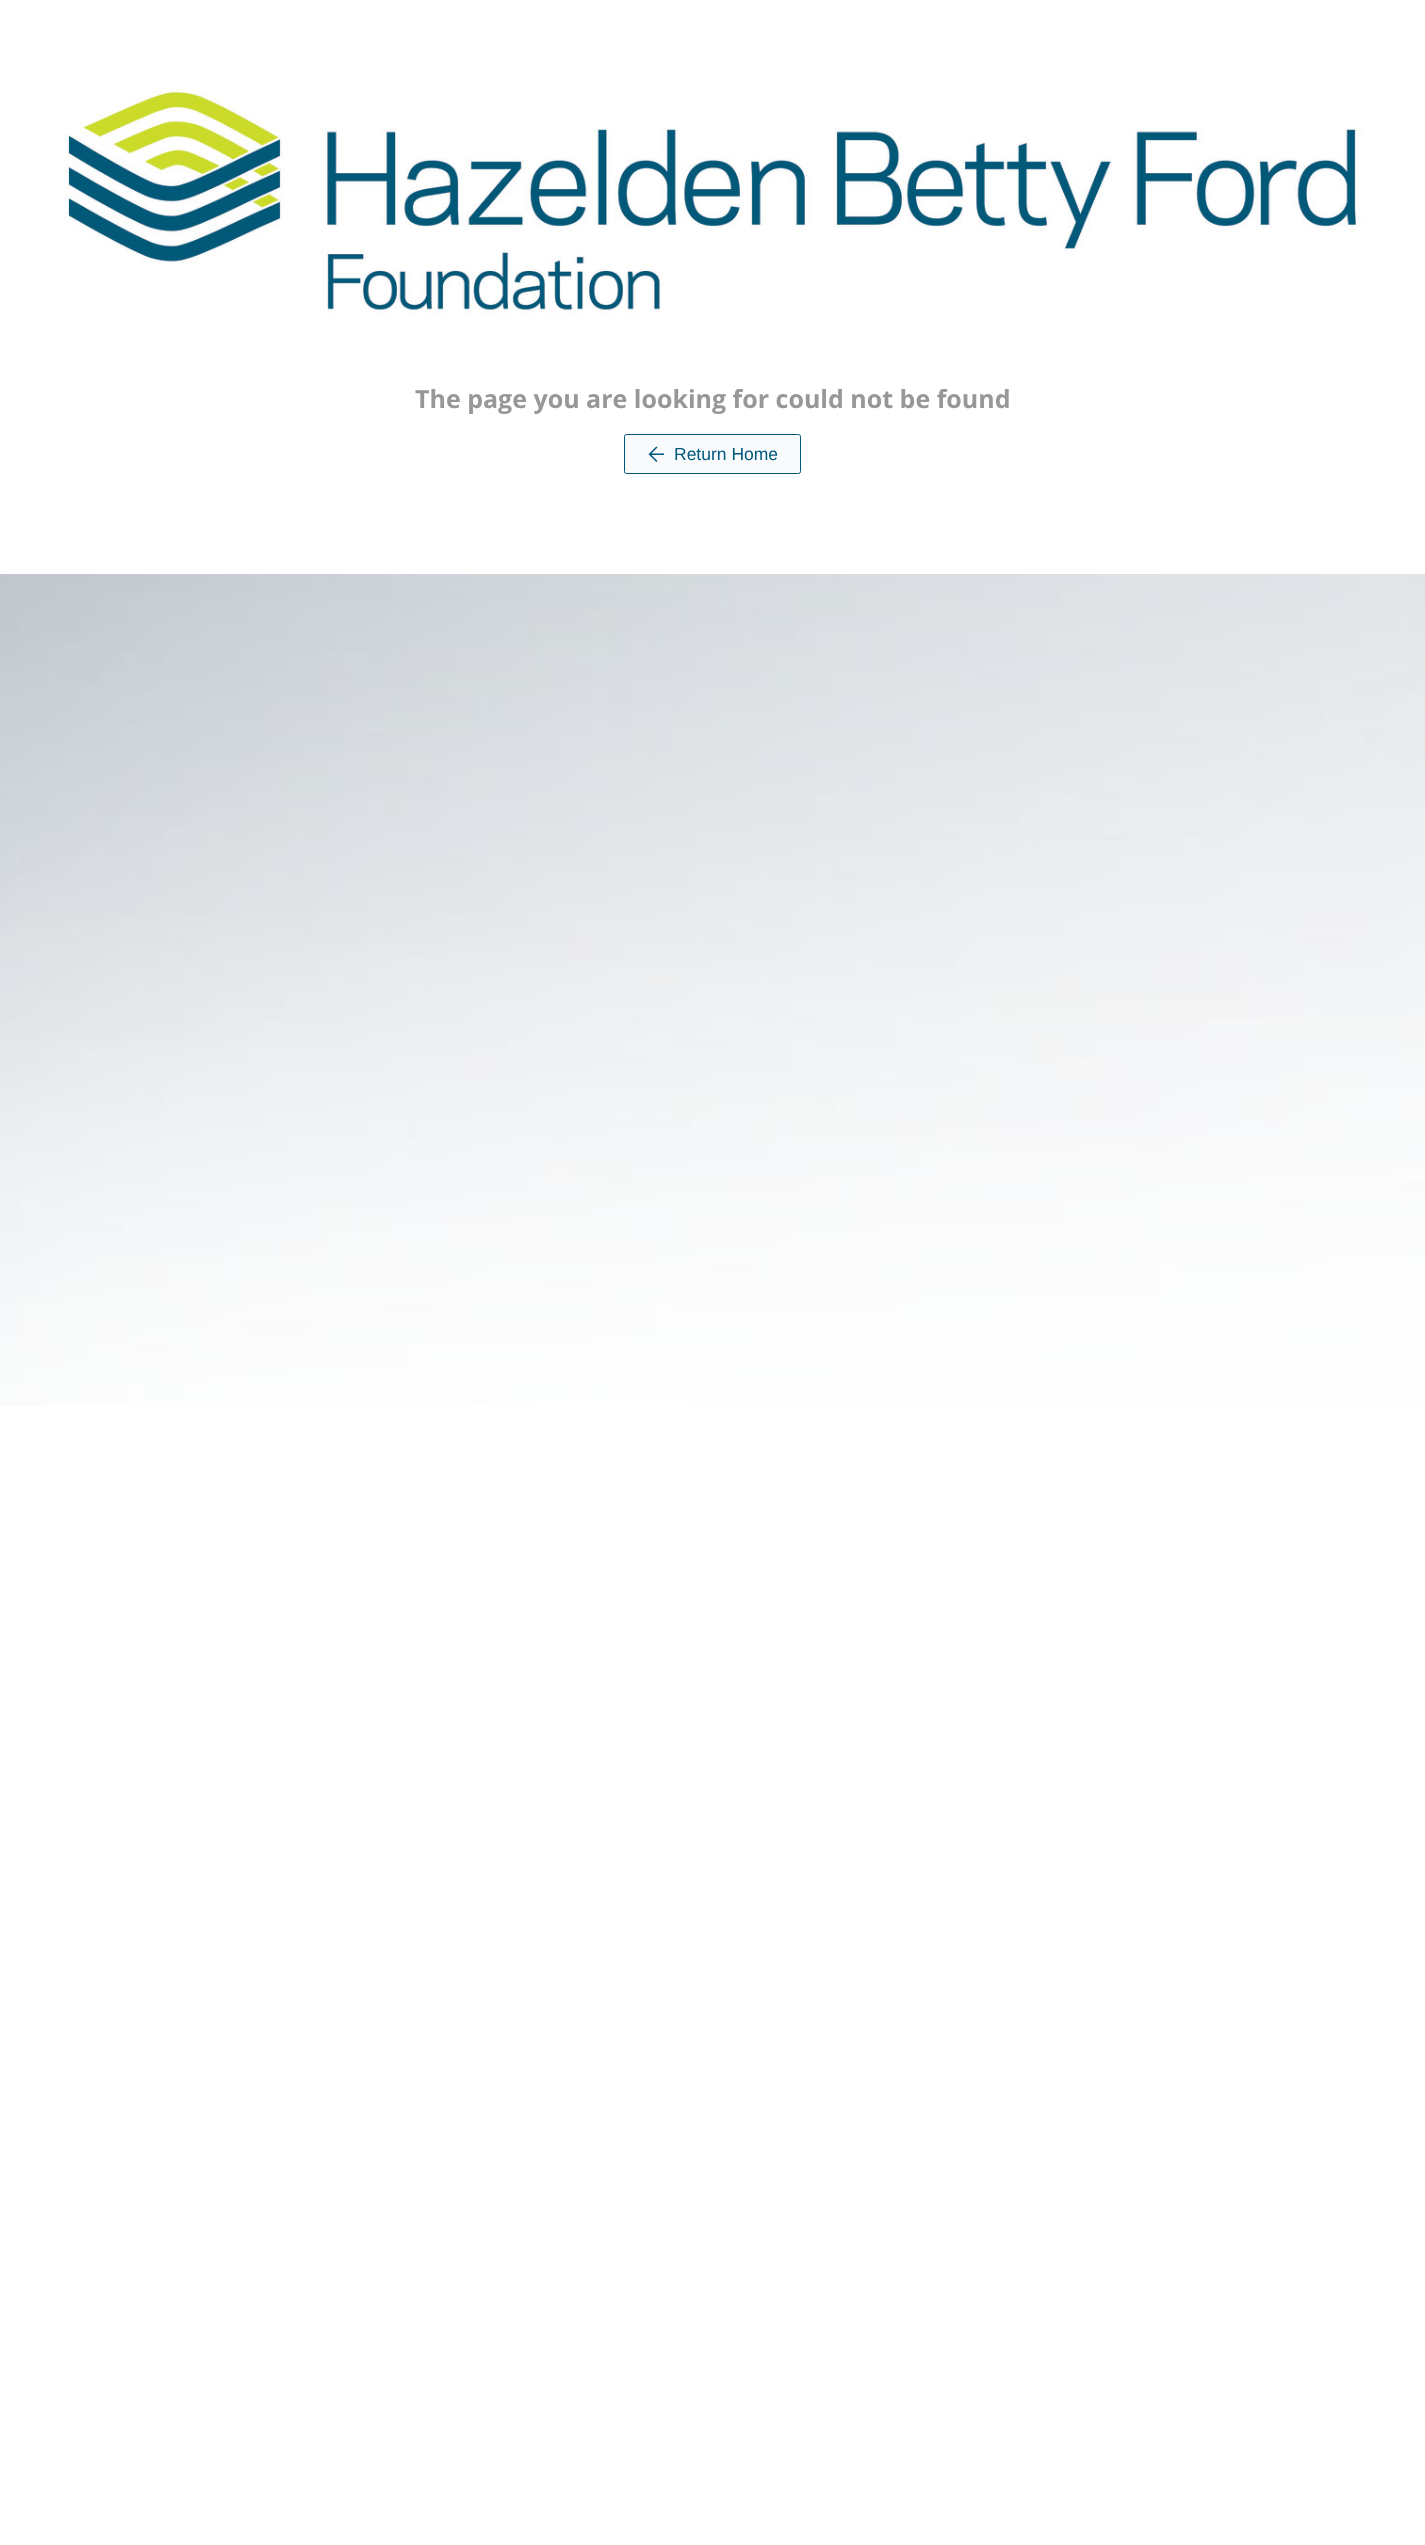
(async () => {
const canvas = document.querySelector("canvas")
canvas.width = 1425
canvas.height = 2545
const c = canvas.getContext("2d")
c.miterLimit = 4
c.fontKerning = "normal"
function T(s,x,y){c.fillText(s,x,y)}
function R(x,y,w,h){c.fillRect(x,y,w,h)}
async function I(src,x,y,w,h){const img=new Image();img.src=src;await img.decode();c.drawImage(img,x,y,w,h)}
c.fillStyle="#fff"
R(0,0,1425,2545)
await I("1.png",0,574,1425,832)
await I("2.png",65,90,1297,226)
c.font="bold 25px Open Sans"
c.fillStyle="#969797"
T("The page you are looking for could not be found",415,408)
c.fillStyle="#f8fafc"
c.beginPath()
c.roundRect(624.5,434.5,176,39,2)
c.fill()
c.strokeStyle="#00587c"
c.stroke()
await I("3.png",648,446,16,16)
c.font="17.5px Liberation Sans"
c.fillStyle="#00587c"
T("Return Home",674,460)
})()
